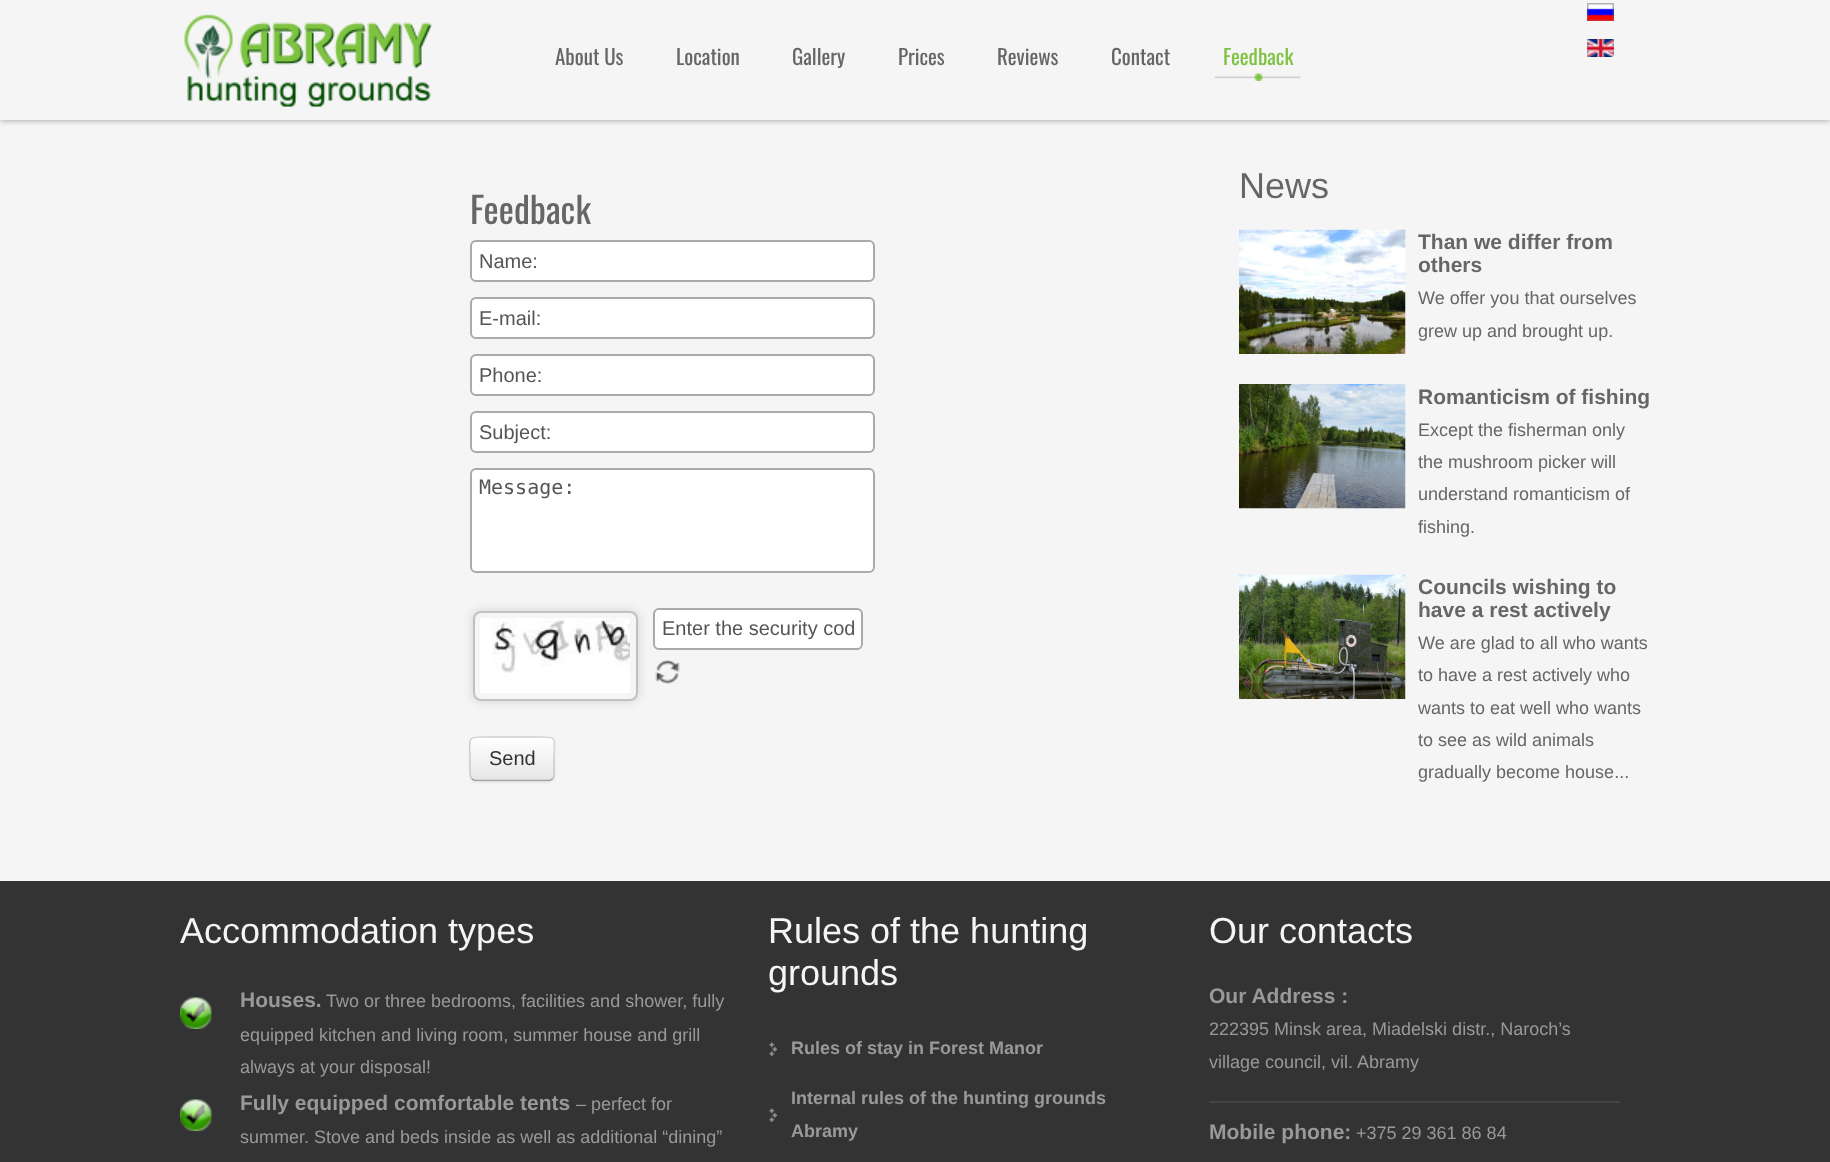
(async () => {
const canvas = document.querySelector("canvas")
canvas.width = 1830
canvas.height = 1162
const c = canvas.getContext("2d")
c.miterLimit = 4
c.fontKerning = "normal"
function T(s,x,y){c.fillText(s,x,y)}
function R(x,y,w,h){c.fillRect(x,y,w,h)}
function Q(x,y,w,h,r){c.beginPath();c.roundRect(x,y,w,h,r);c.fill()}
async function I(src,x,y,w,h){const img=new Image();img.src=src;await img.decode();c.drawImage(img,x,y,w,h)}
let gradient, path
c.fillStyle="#f5f5f5"
R(0,0,1830,1162)
c.save()
c.beginPath()
c.rect(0,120,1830,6)
c.clip()
c.fillStyle="#999"
c.filter="blur(3px)"
c.beginPath()
c.rect(0,0,1830,120)
c.fill()
c.filter="none"
c.restore()
await I("1.png",184,14,249,93)
c.font="21px Oswald"
c.fillStyle="#666"
T("About Us",555,65)
T("Location",676,65)
T("Gallery",792,65)
T("Prices",898,65)
T("Reviews",997,65)
T("Contact",1111,65)
await I("2.png",1215,73,86,8)
c.fillStyle="#7ec242"
T("Feedback",1223,65)
await I("3.png",1587,3,27,18)
await I("4.png",1587,39,27,18)
c.font="36px Oswald"
c.fillStyle="#666"
T("Feedback",470,224)
c.fillStyle="#fff"
c.beginPath()
c.roundRect(471,241,403,40,5)
c.fill()
c.strokeStyle="#aaa"
c.lineWidth=2
c.stroke()
c.font="20px Liberation Sans"
c.fillStyle="#555"
T("Name:",479,268)
c.fillStyle="#fff"
c.beginPath()
c.roundRect(471,298,403,40,5)
c.fill()
c.stroke()
c.fillStyle="#555"
T("E-mail:",479,325)
c.fillStyle="#fff"
c.beginPath()
c.roundRect(471,355,403,40,5)
c.fill()
c.stroke()
c.fillStyle="#555"
T("Phone:",479,382)
c.fillStyle="#fff"
c.beginPath()
c.roundRect(471,412,403,40,5)
c.fill()
c.stroke()
c.fillStyle="#555"
T("Subject:",479,439)
c.fillStyle="#fff"
c.beginPath()
c.roundRect(471,469,403,103,5)
c.fill()
c.stroke()
c.font="20px DejaVu Sans Mono"
c.fillStyle="#555"
T("Message:",479,494)
c.save()
path = new Path2D("M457 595h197v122h-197zm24 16h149c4.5 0 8 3.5 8 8v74c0 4.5-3.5 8-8 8h-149c-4.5 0-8-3.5-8-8v-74c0-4.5 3.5-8 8-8z")
c.clip(path,"evenodd")
c.fillStyle="#c0c0c0b3"
c.filter="blur(5px)"
c.beginPath()
c.roundRect(473,611,165,90,8)
c.fill()
c.filter="none"
c.restore()
c.beginPath()
c.roundRect(474,612,163,88,7)
c.strokeStyle="#c0c0c0"
c.stroke()
await I("5.png",480,618,150,75)
c.fillStyle="#fff"
c.beginPath()
c.roundRect(654,609,208,40,5)
c.fill()
c.strokeStyle="#aaa"
c.stroke()
c.font="20px Liberation Sans"
c.fillStyle="#555"
T("Enter the security cod",662,635)
await I("6.png",655,660,25,24)
c.fillStyle="#0000000d"
c.filter="blur(1.5px)"
c.beginPath()
c.roundRect(470,738,85,45,6)
c.fill()
c.filter="none"
c.fillStyle="#f5f5f5"
Q(470,737,85,45,6)
c.save()
c.beginPath()
c.roundRect(470,737,85,45,6)
c.clip()
gradient = c.createLinearGradient(512,738,512,780)
gradient.addColorStop(0,"#fff")
gradient.addColorStop(1,"#e6e6e6")
c.fillStyle = gradient
R(470,738,85,42)
c.restore()
c.fillStyle="#fff"
path = new Path2D("M476 740h73c2 0 5 2 5 4c0-9-11-6-17-6h-49c-6 0-17-3-17 6c0-2 2-4 5-4z")
c.fill(path)
path = new Path2D("M552.5 779l-3 1.5h-74.5l-3-1.5")
c.strokeStyle="#a2a2a2"
c.lineWidth=1.5
c.stroke(path)
path = new Path2D("M472 779c-2.5-2-2-6-2-9v-11c0-22.5-4-22 18-22h49c21.5 0 17-.5 17 22v11c0 3 1 7-1.5 9")
c.strokeStyle="#00000026"
c.stroke(path)
c.fillStyle="#333"
T("Send",489,765)
c.font="36px Liberation Sans"
c.fillStyle="#666"
T("News",1239,198)
await I("7.png",1239,229,167,125)
c.font="bold 21px Liberation Sans"
T("Than we differ from",1418,249)
T("others",1418,272)
c.font="18px Liberation Sans"
T("We offer you that ourselves",1418,304)
T("grew up and brought up.",1418,337)
await I("8.png",1239,384,167,125)
c.font="bold 21px Liberation Sans"
T("Romanticism of fishing",1418,404)
c.font="18px Liberation Sans"
T("Except the fisherman only",1418,436)
T("the mushroom picker will",1418,468)
T("understand romanticism of",1418,500)
T("fishing.",1418,533)
await I("9.png",1239,574,167,125)
c.font="bold 21px Liberation Sans"
T("Councils wishing to",1418,594)
T("have a rest actively",1418,617)
c.font="18px Liberation Sans"
T("We are glad to all who wants",1418,649)
T("to have a rest actively who",1418,681)
T("wants to eat well who wants",1418,714)
T("to see as wild animals",1418,746)
T("gradually become house...",1418,778)
c.fillStyle="#333"
R(0,881,1830,281)
c.font="36px Liberation Sans"
c.fillStyle="#f5f5f5"
T("Accommodation types",180,943)
await I("10.png",180,997,32,32)
c.font="bold 21px Liberation Sans"
c.fillStyle="#999"
T("Houses.",240,1007)
c.font="18px Liberation Sans"
T("Two or three bedrooms, facilities and shower, fully",326,1007)
T("equipped kitchen and living room, summer house and grill",240,1041)
T("always at your disposal!",240,1073)
await I("10.png",180,1099,32,32)
c.font="bold 21px Liberation Sans"
T("Fully equipped comfortable tents",240,1110)
c.font="18px Liberation Sans"
T("– perfect for",576,1110)
T("summer. Stove and beds inside as well as additional “dining”",240,1143)
c.font="36px Liberation Sans"
c.fillStyle="#f5f5f5"
T("Rules of the hunting",768,943)
T("grounds",768,985)
await I("11.png",769,1042,8,14)
c.font="bold 18px Liberation Sans"
c.fillStyle="#999"
T("Rules of stay in Forest Manor",791,1054)
await I("11.png",769,1108,8,14)
T("Internal rules of the hunting grounds",791,1104)
T("Abramy",791,1137)
c.font="36px Liberation Sans"
c.fillStyle="#f5f5f5"
T("Our contacts",1209,943)
c.fillStyle="#444"
R(1209,1101,411,2)
c.font="bold 21px Liberation Sans"
c.fillStyle="#999"
T("Our Address :",1209,1003)
c.font="18px Liberation Sans"
T("222395 Minsk area, Miadelski distr., Naroch’s",1209,1035)
T("village council, vil. Abramy",1209,1068)
c.font="bold 21px Liberation Sans"
T("Mobile phone:",1209,1139)
c.font="18px Liberation Sans"
T("+375 29 361 86 84",1356,1139)
})()
